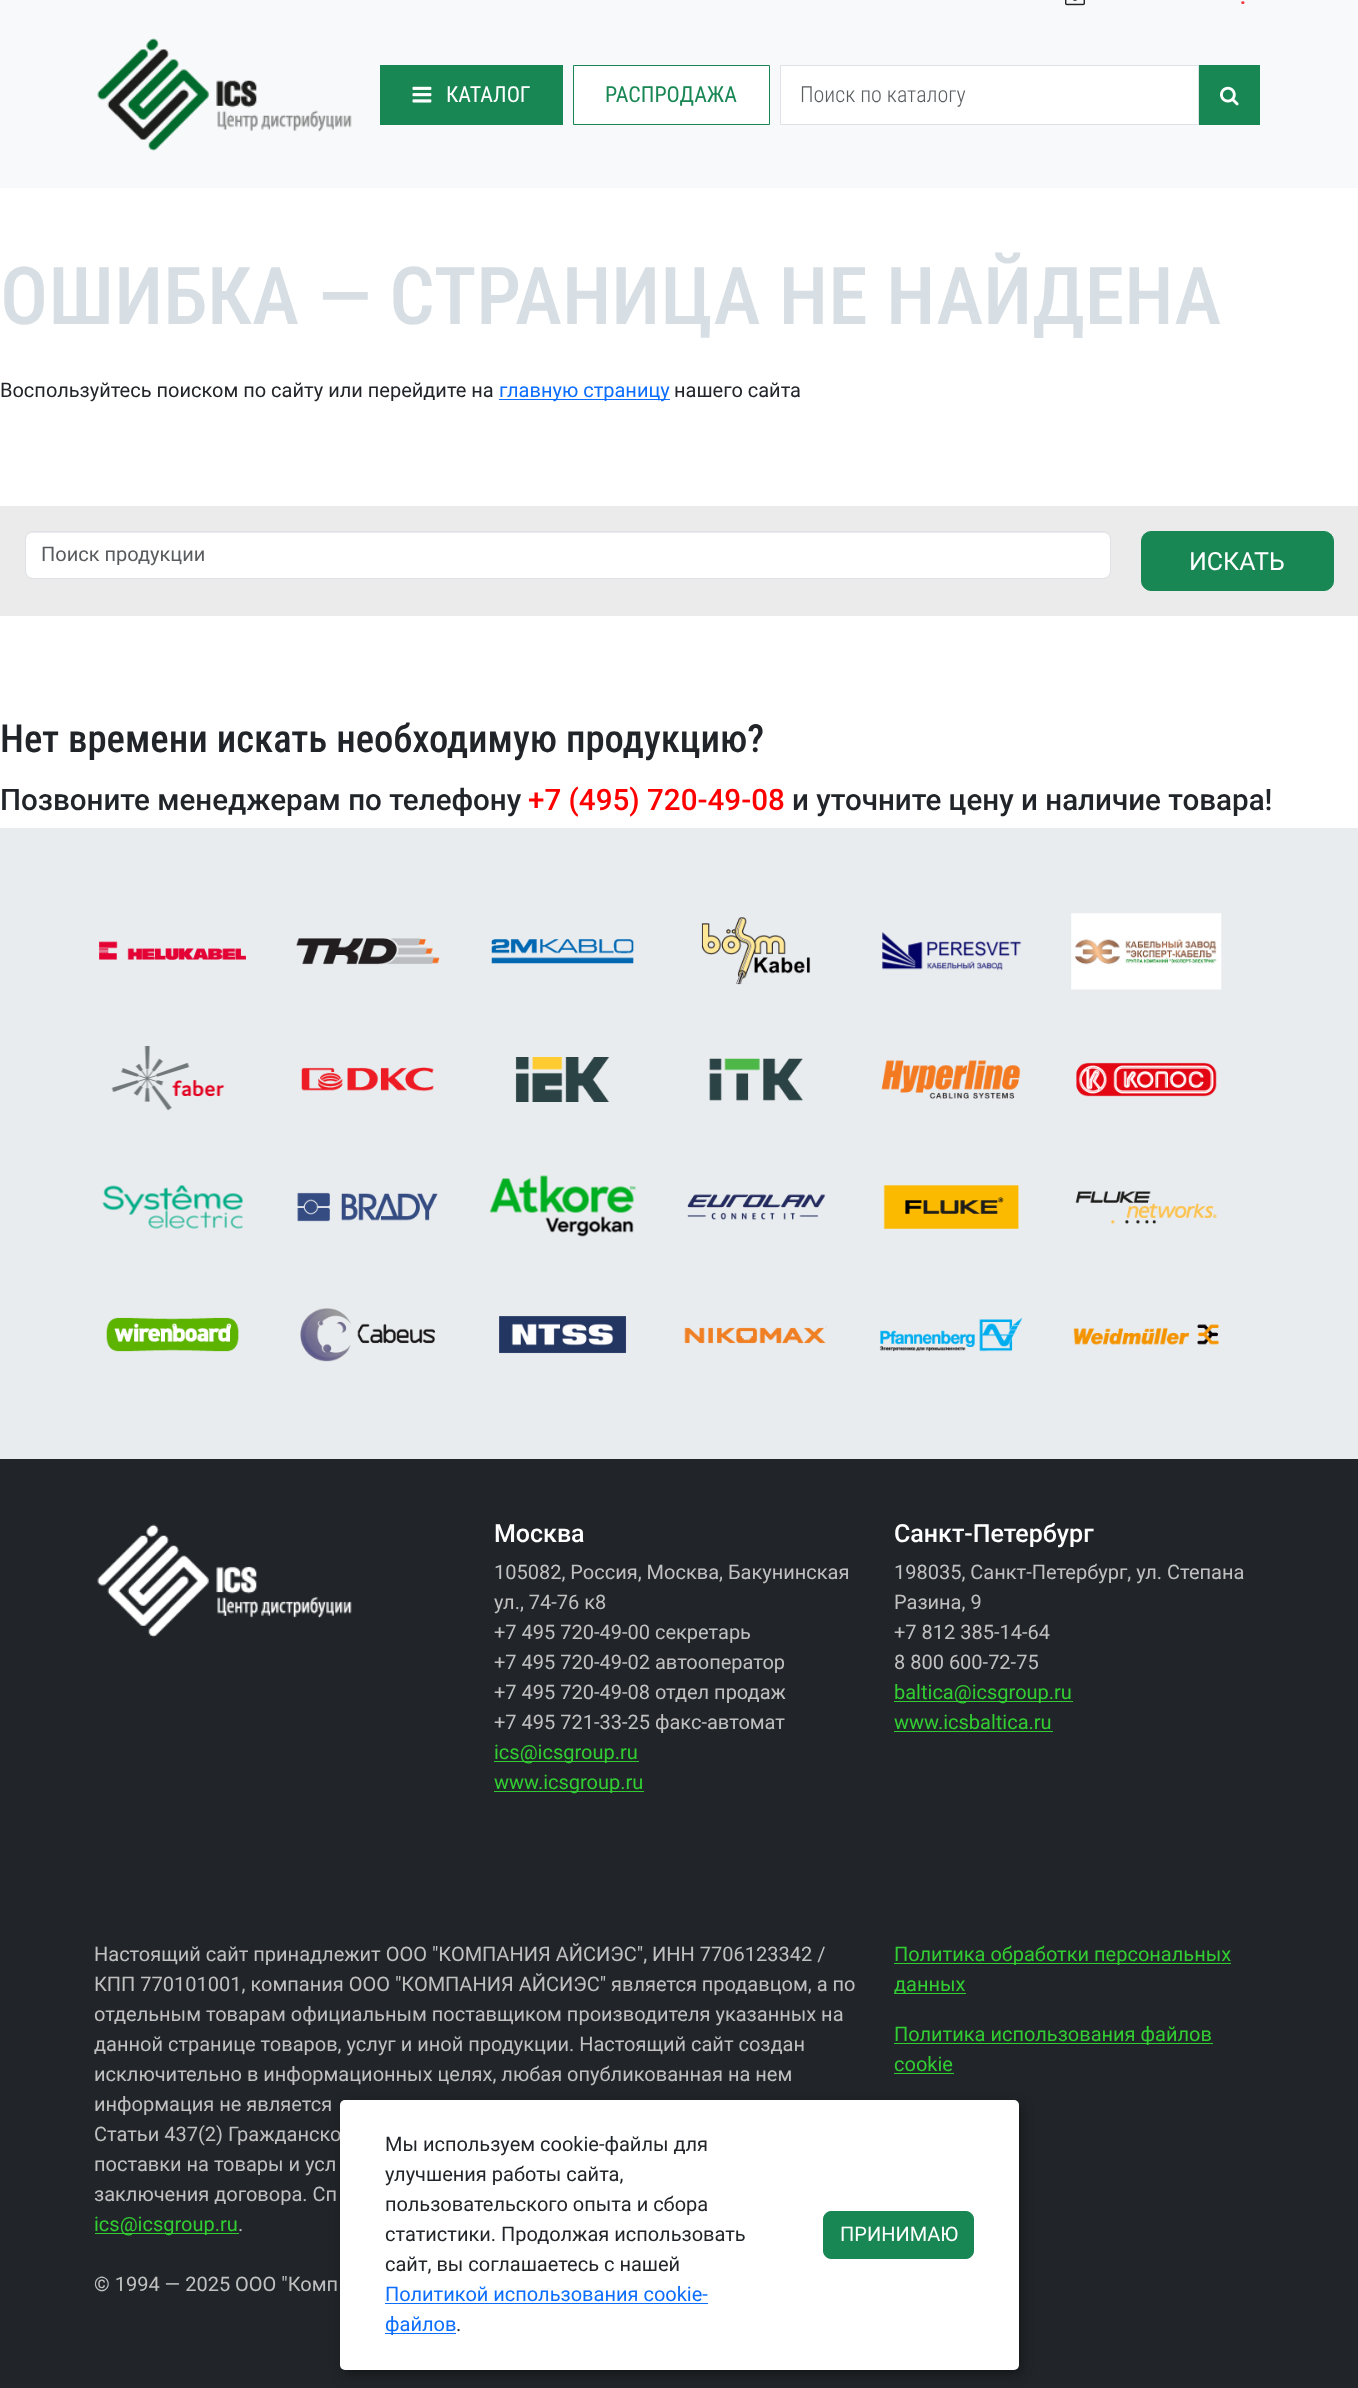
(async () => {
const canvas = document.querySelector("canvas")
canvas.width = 1358
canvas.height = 2388
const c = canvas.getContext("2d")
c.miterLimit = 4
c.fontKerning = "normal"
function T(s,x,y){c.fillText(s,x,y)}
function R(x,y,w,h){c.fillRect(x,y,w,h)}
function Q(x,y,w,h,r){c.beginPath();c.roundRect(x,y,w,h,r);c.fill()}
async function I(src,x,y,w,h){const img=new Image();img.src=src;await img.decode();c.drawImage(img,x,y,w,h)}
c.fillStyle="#fff"
R(0,0,1358,2388)
c.fillStyle="#f8f9fa"
R(0,0,1358,188)
await I("1.png",1065,0,20,6)
c.font="bold 20px Roboto"
c.fillStyle="#ef3a43"
T(".",1240,4)
await I("2.png",97,38,255,113)
c.fillStyle="#198754"
R(380,65,183,60)
await I("3.png",412,86,20,17)
c.font="22px Roboto Condensed"
c.fillStyle="#fff"
T("КАТАЛОГ",446,102)
c.beginPath()
c.rect(573.5,65.5,196,59)
c.fill()
c.strokeStyle="#198754"
c.stroke()
c.fillStyle="#198754"
T("РАСПРОДАЖА",605,102)
c.fillStyle="#fff"
c.beginPath()
c.rect(780.5,65.5,418,59)
c.fill()
c.strokeStyle="#dee2e6"
c.stroke()
c.font="300 22px Roboto Condensed"
c.fillStyle="#595c5f"
T("Поиск по каталогу",800,102)
c.fillStyle="#198754"
R(1199,65,61,60)
await I("4.png",1220,86,19,20)
c.font="500 80px Roboto Condensed"
c.fillStyle="#d8dfe4"
T("ОШИБКА — СТРАНИЦА НЕ НАЙДЕНА",0,324)
c.font="20px Roboto"
c.fillStyle="#212529"
T("Воспользуйтесь поиском по сайту или перейдите на",0,397)
c.fillStyle="#0d6efd"
R(499,399,171,1)
T("главную страницу",499,397)
c.fillStyle="#212529"
T("нашего сайта",674,397)
c.fillStyle="#ebebeb"
R(0,506,1358,110)
c.fillStyle="#fff"
Q(26,533,1084,45,6)
c.beginPath()
c.roundRect(25.5,531.5,1085,47,7.5)
c.stroke()
c.fillStyle="#595c5f"
T("Поиск продукции",41,561)
c.fillStyle="#198754"
c.beginPath()
c.roundRect(1141.5,531.5,192,59,9.5)
c.fill()
c.strokeStyle="#198754"
c.stroke()
c.font="25px Roboto"
c.fillStyle="#fff"
T("ИСКАТЬ",1189,570)
c.font="500 38.75px Roboto Condensed"
c.fillStyle="#212529"
T("Нет времени искать необходимую продукцию?",0,752)
c.font="500 29.6px Roboto"
T("Позвоните менеджерам по телефону",0,810)
c.fillStyle="#f00"
T("+7 (495) 720-49-08",528,810)
c.fillStyle="#212529"
T("и уточните цену и наличие товара!",792,810)
c.fillStyle="#e9ecef"
R(0,828,1358,631)
await I("5.png",99,941,147,19)
await I("6.png",296,938,144,27)
await I("7.png",491,939,143,25)
await I("8.png",701,917,110,68)
await I("9.png",882,932,140,39)
await I("10.png",1071,913,151,77)
await I("11.png",111,1046,114,65)
await I("12.png",301,1067,133,25)
await I("13.png",515,1057,95,45)
await I("14.png",709,1058,94,43)
await I("15.png",881,1060,140,39)
await I("16.png",1076,1062,141,35)
await I("17.png",102,1185,141,44)
await I("18.png",297,1192,141,30)
await I("19.png",489,1175,147,62)
await I("20.png",687,1194,139,26)
await I("21.png",883,1185,136,44)
await I("22.png",1075,1191,142,33)
await I("23.png",106,1317,133,35)
await I("24.png",300,1308,135,54)
await I("25.png",499,1316,128,38)
await I("26.png",684,1326,143,18)
await I("27.png",879,1317,144,35)
await I("28.png",1073,1324,146,21)
c.fillStyle="#212529"
R(0,1459,1358,929)
await I("29.png",97,1524,255,114)
c.font="500 25px Roboto"
c.fillStyle="#fff"
T("Москва",494,1542)
c.font="20px Roboto"
c.fillStyle="#c0c0c0"
T("105082, Россия, Москва, Бакунинская",494,1579)
T("ул., 74-76 к8",494,1609)
T("+7 495 720-49-00 секретарь",494,1639)
T("+7 495 720-49-02 автооператор",494,1669)
T("+7 495 720-49-08 отдел продаж",494,1699)
T("+7 495 721-33-25 факс-автомат",494,1729)
c.fillStyle="#32cd32"
R(494,1761,145,1)
T("ics@icsgroup.ru",494,1759)
R(494,1791,150,1)
T("www.icsgroup.ru",494,1789)
c.font="500 25px Roboto"
c.fillStyle="#fff"
T("Санкт-Петербург",894,1542)
c.font="20px Roboto"
c.fillStyle="#c0c0c0"
T("198035, Санкт-Петербург, ул. Степана",894,1579)
T("Разина, 9",894,1609)
T("+7 812 385-14-64",894,1639)
T("8 800 600-72-75",894,1669)
c.fillStyle="#32cd32"
R(894,1701,179,1)
T("baltica@icsgroup.ru",894,1699)
T("www.icsbaltica.ru",894,1729)
R(894,1731,159,1)
c.fillStyle="#c0c0c0"
T("Настоящий сайт принадлежит ООО \"КОМПАНИЯ АЙСИЭС\", ИНН 7706123342 /",94,1961)
T("КПП 770101001, компания ООО \"КОМПАНИЯ АЙСИЭС\" является продавцом, а по",94,1991)
T("отдельным товарам официальным поставщиком производителя указанных на",94,2021)
T("данной странице товаров, услуг и иной продукции. Настоящий сайт создан",94,2051)
T("исключительно в информационных целях, любая опубликованная на нем",94,2081)
T("информация не является",94,2111)
T("Статьи 437(2) Гражданско",94,2141)
T("поставки на товары и усл",94,2171)
T("заключения договора. Сп",94,2201)
c.fillStyle="#32cd32"
R(95,2233,144,1)
T("ics@icsgroup.ru",94,2231)
c.fillStyle="#c0c0c0"
T(".",238,2231)
T("© 1994 — 2025 ООО \"Комп",94,2291)
c.fillStyle="#32cd32"
R(894,1963,337,1)
T("Политика обработки персональных",894,1961)
R(894,1993,72,1)
T("данных",894,1991)
R(894,2043,319,1)
T("Политика использования файлов",894,2041)
T("cookie",894,2071)
R(894,2073,60,1)
c.fillStyle="#00000066"
c.filter="blur(6px)"
c.beginPath()
c.roundRect(343,2104,678,270,5)
c.fill()
c.filter="none"
c.fillStyle="#fff"
Q(340,2100,679,270,5)
c.fillStyle="#212529"
T("Мы используем cookie-файлы для",385,2151)
T("улучшения работы сайта,",385,2181)
T("пользовательского опыта и сбора",385,2211)
T("статистики. Продолжая использовать",385,2241)
T("сайт, вы соглашаетесь с нашей",385,2271)
c.fillStyle="#0d6efd"
T("Политикой использования cookie-",385,2301)
R(385,2303,323,1)
R(385,2333,71,1)
T("файлов",385,2331)
c.fillStyle="#212529"
T(".",456,2331)
c.fillStyle="#198754"
c.beginPath()
c.roundRect(823.5,2211.5,150,47,7.5)
c.fill()
c.stroke()
c.fillStyle="#fff"
T("ПРИНИМАЮ",840,2241)
})()
